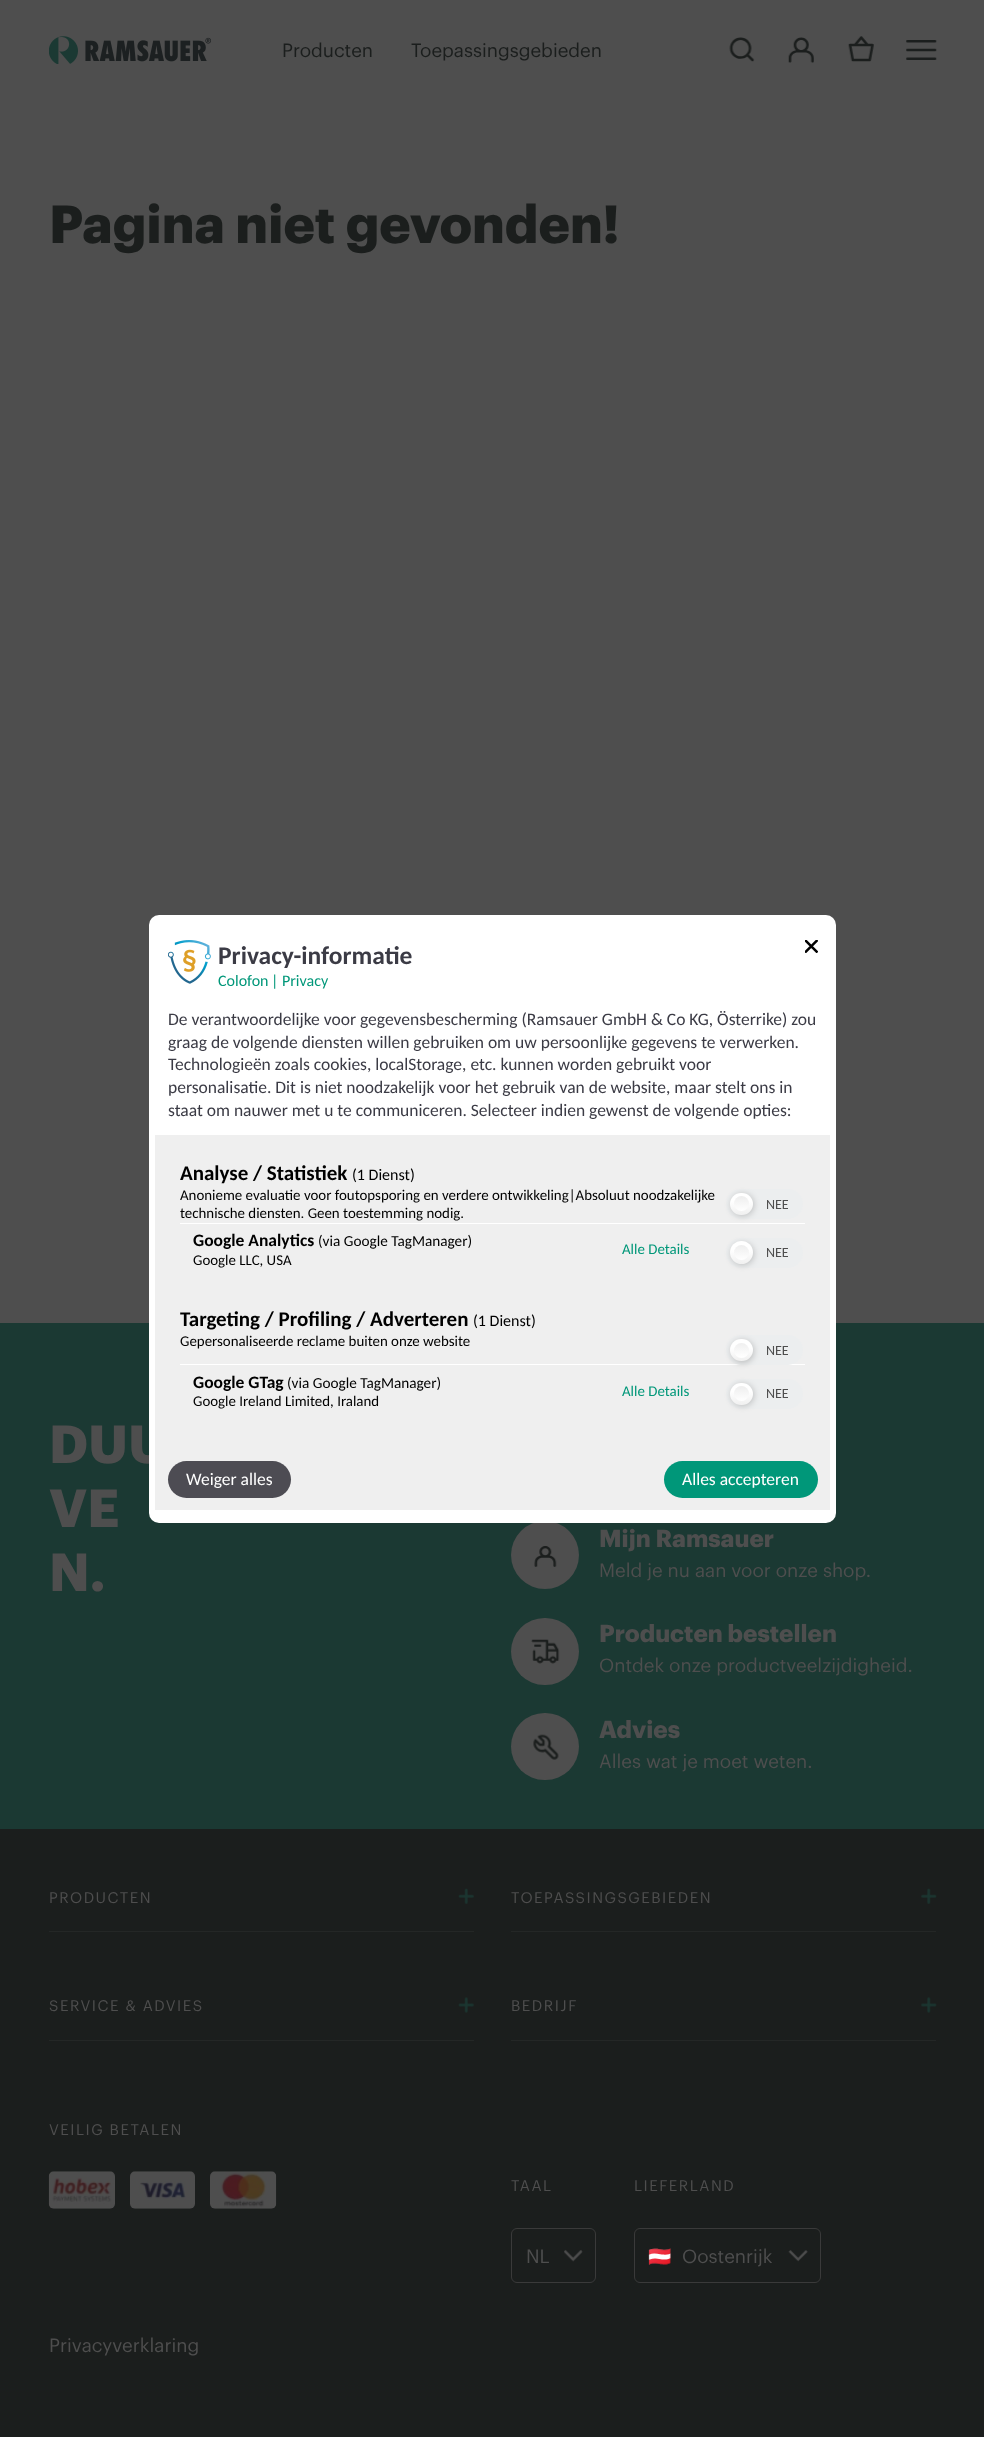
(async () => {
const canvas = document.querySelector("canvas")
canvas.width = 984
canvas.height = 2437
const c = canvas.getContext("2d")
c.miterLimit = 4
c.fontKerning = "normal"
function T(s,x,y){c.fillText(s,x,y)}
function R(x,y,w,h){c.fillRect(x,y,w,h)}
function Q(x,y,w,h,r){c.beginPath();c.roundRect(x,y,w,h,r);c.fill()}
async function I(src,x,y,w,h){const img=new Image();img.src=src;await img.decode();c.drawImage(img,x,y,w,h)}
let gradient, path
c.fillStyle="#4e4e4e"
R(0,0,984,2437)
await I("1.png",49,36,162,28)
c.font="18.75px Graphik"
c.fillStyle="#1b1e1d"
T("Producten",282,57)
T("Toepassingsgebieden",411,57)
await I("2.png",729,37,26,25)
await I("3.png",788,37,26,26)
await I("4.png",848,36,26,26)
await I("5.png",906,40,31,20)
c.font="bold 52.5px Graphik"
T("Pagina niet gevonden!",49,243)
c.fillStyle="#1b3933"
R(0,1323,984,506)
c.fillStyle="#4e4e4e"
T("DUU",49,1463)
T("VE",49,1527)
T("N.",49,1591)
c.beginPath()
c.arc(545,1555,34,0,7)
c.fill()
await I("6.png",534,1546,23,21)
c.font="bold 24px Graphik"
T("Mijn Ramsauer",599,1547)
c.font="18.75px Graphik"
T("Meld je nu aan voor onze shop.",599,1577)
Q(511,1618,68,67,33.5)
await I("7.png",531,1639,29,25)
c.font="bold 24px Graphik"
T("Producten bestellen",599,1642)
c.font="18.75px Graphik"
T("Ontdek onze productveelzijdigheid.",599,1672)
Q(511,1713,68,67,33.5)
await I("8.png",533,1734,26,26)
c.font="bold 24px Graphik"
T("Advies",599,1738)
c.font="18.75px Graphik"
T("Alles wat je moet weten.",599,1768)
c.fillStyle="#1b1e1d"
R(0,1829,984,608)
c.fillStyle="#242726"
R(49,1931,425,1)
c.letterSpacing="1.5px"
c.font="15px Graphik"
c.fillStyle="#4e4e4e"
T("PRODUCTEN",49,1903)
await I("9.png",458,1888,16,16)
c.fillStyle="#242726"
R(511,1931,425,1)
c.fillStyle="#4e4e4e"
T("TOEPASSINGSGEBIEDEN",511,1903)
await I("10.png",921,1888,16,16)
c.fillStyle="#242726"
R(49,2040,425,1)
c.fillStyle="#4e4e4e"
T("SERVICE & ADVIES",49,2011)
await I("11.png",458,1997,16,16)
c.fillStyle="#242726"
R(511,2040,425,1)
c.fillStyle="#4e4e4e"
T("BEDRIJF",511,2011)
await I("12.png",921,1997,16,16)
T("VEILIG BETALEN",49,2135)
await I("13.png",48,2171,67,38)
await I("14.png",130,2171,65,38)
await I("15.png",210,2171,67,38)
T("TAAL",511,2191)
c.beginPath()
c.roundRect(511.5,2228.5,84,54,5.5)
c.strokeStyle="#3a3a3a"
c.stroke()
c.letterSpacing="0px"
c.font="18.75px Graphik"
T("NL",526,2263)
await I("16.png",564,2249,19,13)
c.letterSpacing="1.5px"
c.font="15px Graphik"
T("LIEFERLAND",634,2191)
c.beginPath()
c.roundRect(634.5,2228.5,186,54,5.5)
c.stroke()
c.letterSpacing="0px"
c.font="18.75px Noto Color Emoji"
T("🇦🇹",648,2263)
c.font="18.75px Graphik"
T("Oostenrijk",682,2263)
await I("17.png",788,2250,20,12)
T("Privacyverklaring",49,2352)
c.fillStyle="#fff"
Q(149,915,687,608,10)
await I("18.png",168,940,43,44)
c.font="bold 25.5px Carlito"
c.fillStyle="#3b3b45"
T("Privacy-informatie",218,964)
c.save()
c.beginPath()
c.rect(805,940,13,13)
c.clip()
path = new Path2D("M805 940l12.5 12.5m-12.5 0l12.5-12.5")
c.strokeStyle="#000"
c.lineWidth=2.5
c.stroke(path)
c.restore()
c.font="16px Carlito"
c.fillStyle="#009779"
T("Colofon",218,986)
T("|",271,986)
T("Privacy",282,986)
c.font="17.5px Carlito"
c.fillStyle="#3b3b45"
T("De verantwoordelijke voor gegevensbescherming (Ramsauer GmbH & Co KG, Österrike) zou",168,1025)
T("graag de volgende diensten willen gebruiken om uw persoonlijke gegevens te verwerken.",168,1048)
T("Technologieën zoals cookies, localStorage, etc. kunnen worden gebruikt voor",168,1070)
T("personalisatie. Dit is niet noodzakelijk voor het gebruik van de website, maar stelt ons in",168,1093)
T("staat om nauwer met u te communiceren. Selecteer indien gewenst de volgende opties:",168,1116)
c.fillStyle="#efefef"
R(155,1135,675,375)
c.font="bold 21px Carlito"
c.fillStyle="#000"
T("Analyse / Statistiek",180,1180)
c.font="16px Carlito"
T("(1 Dienst)",352,1180)
c.font="14.9px Carlito"
T("Anonieme evaluatie voor foutopsporing en verdere ontwikkeling|Absoluut noodzakelijke",180,1200)
T("technische diensten. Geen toestemming nodig.",180,1218)
c.fillStyle="#eceeef"
Q(726,1189,77,30,15)
c.fillStyle="#fff"
R(180,1223,625,1)
c.fillStyle="#00000033"
c.filter="blur(3px)"
c.beginPath()
c.roundRect(731,1194,23,22,11)
c.fill()
c.filter="none"
gradient = c.createLinearGradient(741,1192,741,1215)
gradient.addColorStop(.4,"#fff")
gradient.addColorStop(1,"#f0f0f0")
c.fillStyle = gradient
Q(730,1193,23,22,11)
gradient = c.createLinearGradient(741,1196,741,1211)
gradient.addColorStop(0,"#eee")
gradient.addColorStop(1,"#fff")
c.fillStyle = gradient
c.beginPath()
c.arc(741.5,1203.5,7.5,0,7)
c.fill()
c.font="14px Carlito"
c.fillStyle="#4e4e4e"
T("NEE",766,1209)
c.font="bold 17.5px Carlito"
c.fillStyle="#000"
T("Google Analytics",193,1246)
c.font="15.25px Carlito"
T("(via Google TagManager)",318,1246)
c.font="14.9px Carlito"
T("Google LLC, USA",193,1265)
c.fillStyle="#009779"
T("Alle Details",622,1254)
c.fillStyle="#eceeef"
Q(726,1238,77,30,15)
c.fillStyle="#00000033"
c.filter="blur(3px)"
c.beginPath()
c.roundRect(731,1243,23,22,11)
c.fill()
c.filter="none"
gradient = c.createLinearGradient(741,1241,741,1264)
gradient.addColorStop(.4,"#fff")
gradient.addColorStop(1,"#f0f0f0")
c.fillStyle = gradient
c.beginPath()
c.arc(741.5,1252.5,11.5,0,7)
c.fill()
gradient = c.createLinearGradient(741,1245,741,1260)
gradient.addColorStop(0,"#eee")
gradient.addColorStop(1,"#fff")
c.fillStyle = gradient
c.beginPath()
c.arc(741.5,1252.5,7.5,0,7)
c.fill()
c.font="14px Carlito"
c.fillStyle="#4e4e4e"
T("NEE",766,1257)
c.font="bold 21px Carlito"
c.fillStyle="#000"
T("Targeting / Profiling / Adverteren",180,1326)
c.font="16px Carlito"
T("(1 Dienst)",473,1326)
c.font="14.9px Carlito"
T("Gepersonaliseerde reclame buiten onze website",180,1346)
c.fillStyle="#fff"
R(180,1364,625,1)
c.fillStyle="#eceeef"
Q(726,1335,77,30,15)
c.fillStyle="#00000033"
c.filter="blur(3px)"
c.beginPath()
c.roundRect(731,1340,23,23,11.5)
c.fill()
c.filter="none"
gradient = c.createLinearGradient(741,1339,741,1361)
gradient.addColorStop(.4,"#fff")
gradient.addColorStop(1,"#f0f0f0")
c.fillStyle = gradient
Q(730,1339,23,22,11)
gradient = c.createLinearGradient(741,1342,741,1357)
gradient.addColorStop(0,"#eee")
gradient.addColorStop(1,"#fff")
c.fillStyle = gradient
c.beginPath()
c.arc(741.5,1350.5,7.5,0,7)
c.fill()
c.font="14px Carlito"
c.fillStyle="#4e4e4e"
T("NEE",766,1355)
c.font="bold 17.5px Carlito"
c.fillStyle="#000"
T("Google GTag",193,1388)
c.font="15.25px Carlito"
T("(via Google TagManager)",287,1388)
c.font="14.9px Carlito"
T("Google Ireland Limited, Iraland",193,1406)
c.fillStyle="#009779"
T("Alle Details",622,1396)
c.fillStyle="#eceeef"
Q(726,1379,77,30,15)
c.fillStyle="#00000033"
c.filter="blur(3px)"
c.beginPath()
c.roundRect(731,1384,23,22,11)
c.fill()
c.filter="none"
gradient = c.createLinearGradient(741,1382,741,1405)
gradient.addColorStop(.4,"#fff")
gradient.addColorStop(1,"#f0f0f0")
c.fillStyle = gradient
Q(730,1383,23,22,11)
gradient = c.createLinearGradient(741,1386,741,1401)
gradient.addColorStop(0,"#eee")
gradient.addColorStop(1,"#fff")
c.fillStyle = gradient
c.beginPath()
c.arc(741.5,1393.5,7.5,0,7)
c.fill()
c.font="14px Carlito"
c.fillStyle="#4e4e4e"
T("NEE",766,1398)
c.fillStyle="#4d4c53"
Q(168,1461,123,37,18.5)
c.font="17.5px Carlito"
c.fillStyle="#fff"
T("Weiger alles",186,1485)
c.fillStyle="#009779"
Q(664,1461,154,37,18.5)
c.fillStyle="#fff"
T("Alles accepteren",682,1485)
})()
